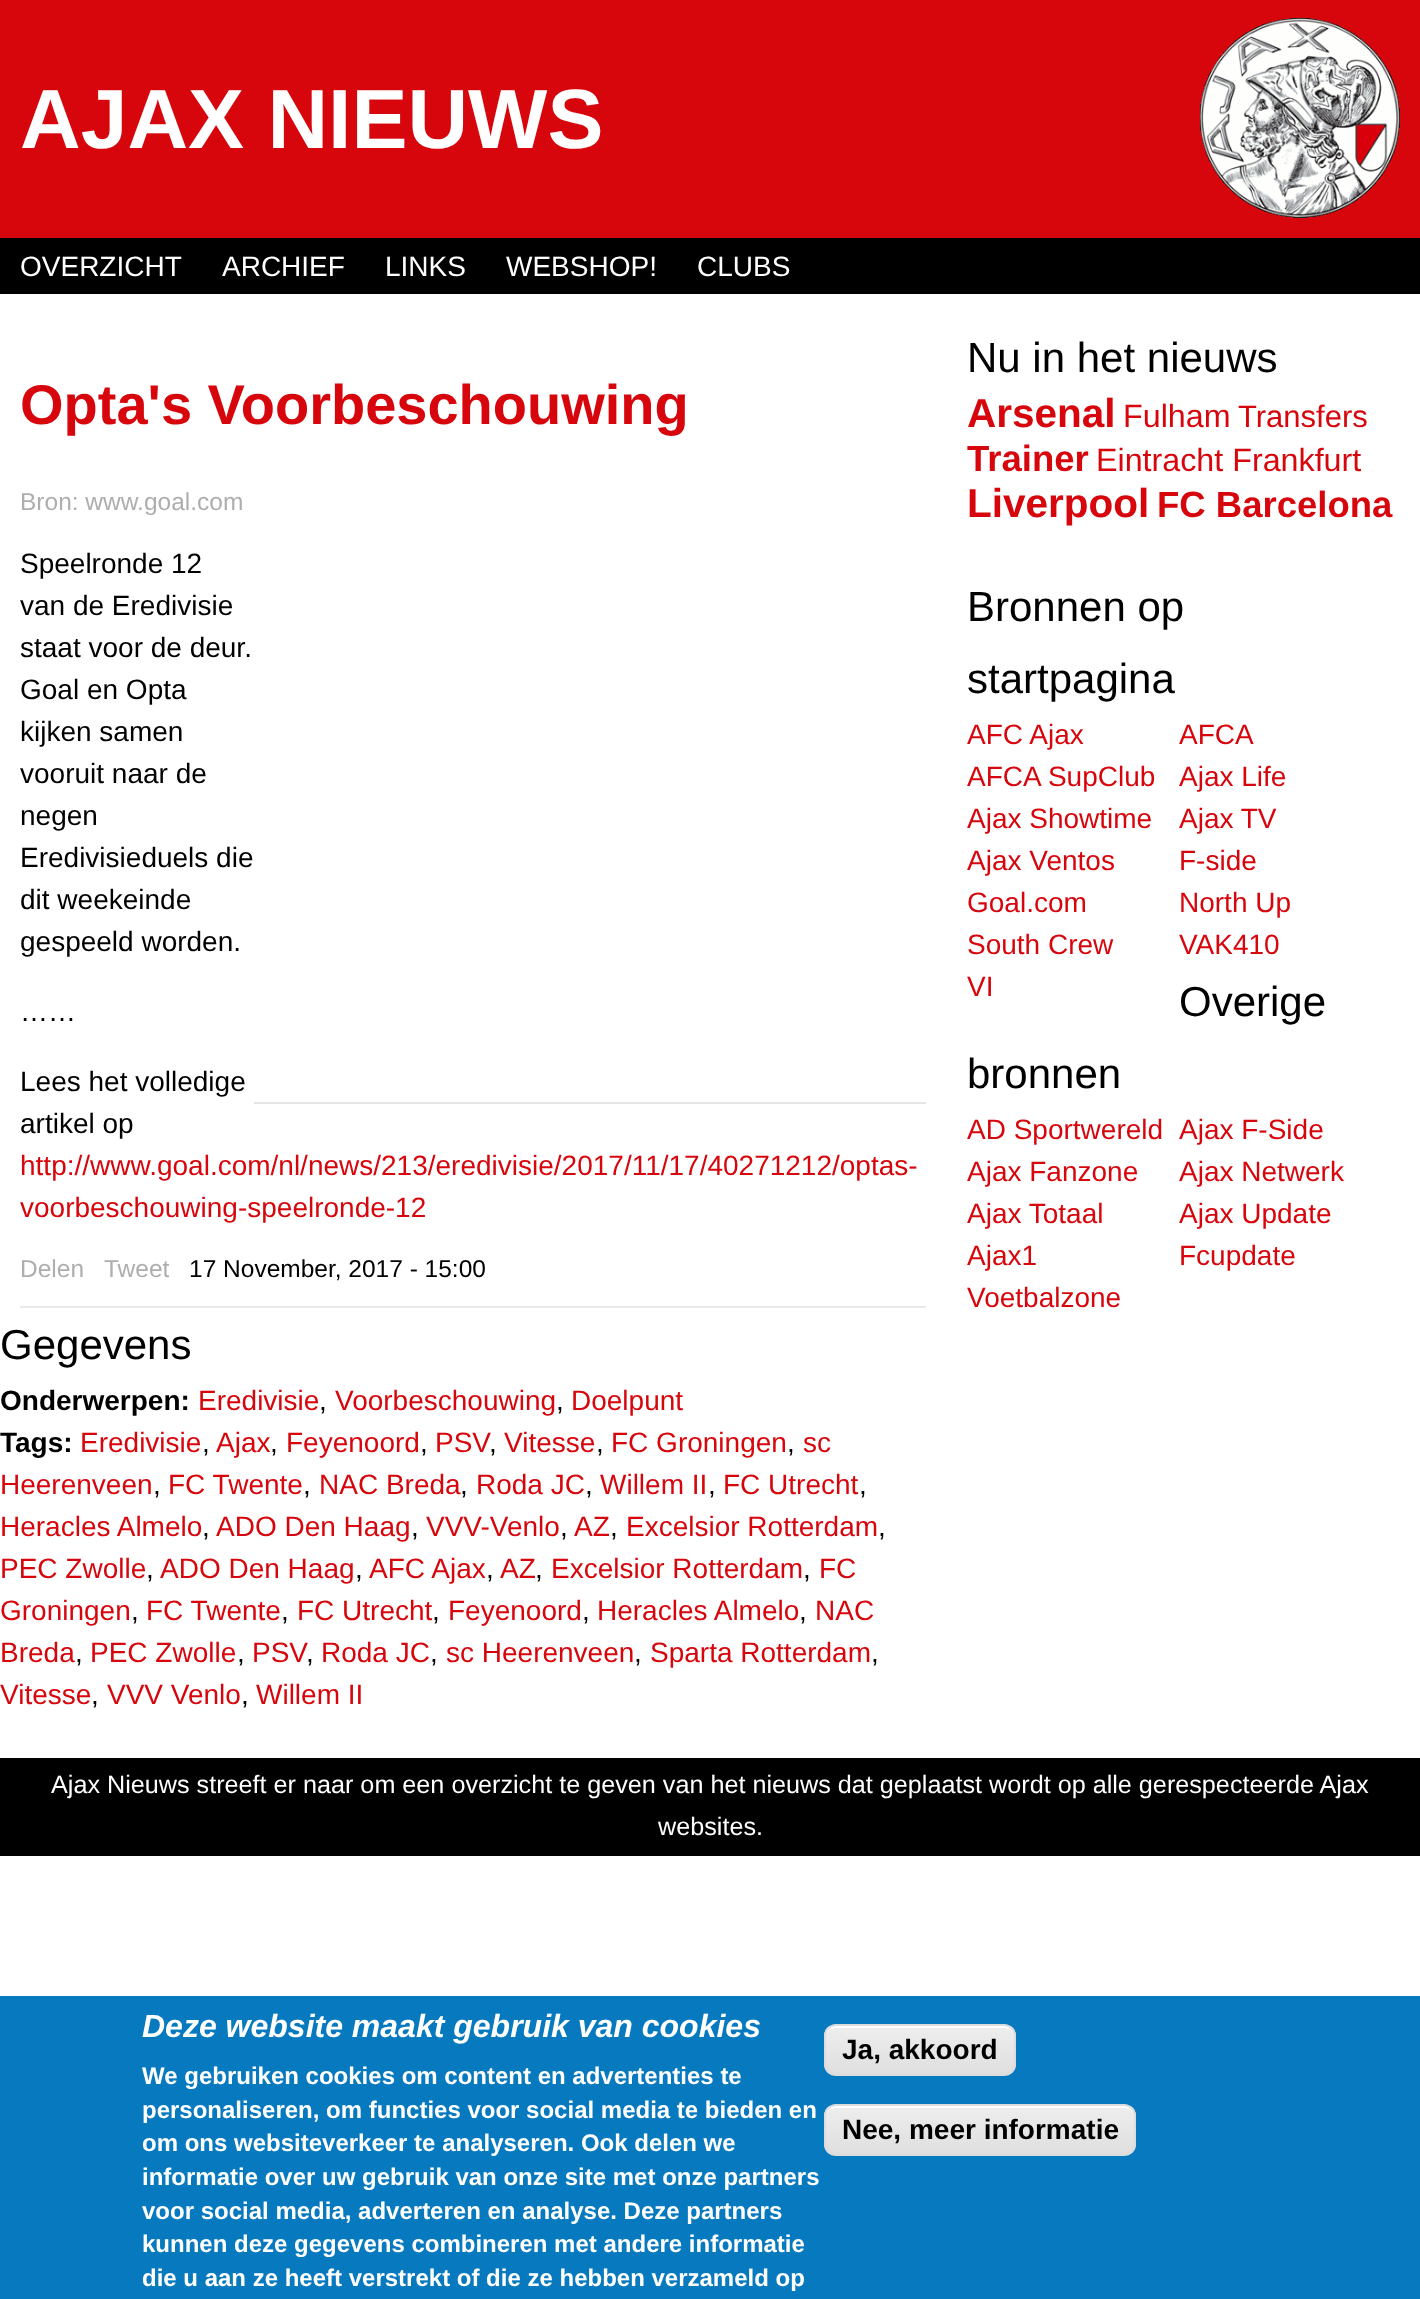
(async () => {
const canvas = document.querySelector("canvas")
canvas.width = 1420
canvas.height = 2299
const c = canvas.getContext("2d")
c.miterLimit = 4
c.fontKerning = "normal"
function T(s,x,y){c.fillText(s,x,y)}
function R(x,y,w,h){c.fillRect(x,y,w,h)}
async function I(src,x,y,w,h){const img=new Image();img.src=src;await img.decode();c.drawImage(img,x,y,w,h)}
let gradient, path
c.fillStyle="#fff"
R(0,0,1420,2299)
c.fillStyle="#d7060c"
R(0,0,1420,238)
c.font="bold 84px Liberation Sans"
c.fillStyle="#fff"
T("AJAX NIEUWS",20,148)
await I("1.png",1200,18,200,200)
c.fillStyle="#000"
R(0,238,1420,56)
c.font="28px Liberation Sans"
c.fillStyle="#fff"
T("OVERZICHT",20,276)
T("ARCHIEF",222,276)
T("LINKS",385,276)
T("WEBSHOP!",506,276)
T("CLUBS",697,276)
c.font="bold 56px Liberation Sans"
c.fillStyle="#d7060c"
T("Opta's Voorbeschouwing",20,424)
c.font="24.5px Liberation Sans"
c.fillStyle="#aeaeae"
T("Bron: www.goal.com",20,510)
c.font="28px Liberation Sans"
c.fillStyle="#000"
T("Speelronde 12",20,573)
T("van de Eredivisie",20,615)
T("staat voor de deur.",20,657)
T("Goal en Opta",20,699)
T("kijken samen",20,741)
T("vooruit naar de",20,783)
T("negen",20,825)
T("Eredivisieduels die",20,867)
T("dit weekeinde",20,909)
T("gespeeld worden.",20,951)
T("……",20,1021)
c.fillStyle="#e5e5e5"
R(254,1102,672,2)
c.fillStyle="#000"
T("Lees het volledige",20,1091)
T("artikel op",20,1133)
c.fillStyle="#d7060c"
T("http://www.goal.com/nl/news/213/eredivisie/2017/11/17/40271212/optas-",20,1175)
T("voorbeschouwing-speelronde-12",20,1217)
c.fillStyle="#eaeaea"
R(20,1306,906,2)
c.font="24.5px Liberation Sans"
c.fillStyle="#aeaeae"
T("Delen",20,1277)
T("Tweet",104,1277)
c.fillStyle="#000"
T("17 November, 2017 - 15:00",189,1277)
c.font="42px Liberation Sans"
T("Gegevens",0,1359)
c.font="bold 28px Liberation Sans"
T("Onderwerpen:",0,1410)
c.font="28px Liberation Sans"
c.fillStyle="#d7060c"
T("Eredivisie",198,1410)
c.fillStyle="#000"
T(",",319,1410)
c.fillStyle="#d7060c"
T("Voorbeschouwing",335,1410)
c.fillStyle="#000"
T(",",556,1410)
c.fillStyle="#d7060c"
T("Doelpunt",571,1410)
c.font="bold 28px Liberation Sans"
c.fillStyle="#000"
T("Tags:",0,1452)
c.font="28px Liberation Sans"
c.fillStyle="#d7060c"
T("Eredivisie",80,1452)
c.fillStyle="#000"
T(",",202,1452)
c.fillStyle="#d7060c"
T("Ajax",216,1452)
c.fillStyle="#000"
T(",",270,1452)
c.fillStyle="#d7060c"
T("Feyenoord",286,1452)
c.fillStyle="#000"
T(",",420,1452)
c.fillStyle="#d7060c"
T("PSV",435,1452)
c.fillStyle="#000"
T(",",489,1452)
c.fillStyle="#d7060c"
T("Vitesse",504,1452)
c.fillStyle="#000"
T(",",596,1452)
c.fillStyle="#d7060c"
T("FC Groningen",611,1452)
c.fillStyle="#000"
T(",",787,1452)
c.fillStyle="#d7060c"
T("sc",803,1452)
T("Heerenveen",0,1494)
c.fillStyle="#000"
T(",",153,1494)
c.fillStyle="#d7060c"
T("FC Twente",168,1494)
c.fillStyle="#000"
T(",",303,1494)
c.fillStyle="#d7060c"
T("NAC Breda",319,1494)
c.fillStyle="#000"
T(",",460,1494)
c.fillStyle="#d7060c"
T("Roda JC",476,1494)
c.fillStyle="#000"
T(",",585,1494)
c.fillStyle="#d7060c"
T("Willem II",600,1494)
c.fillStyle="#000"
T(",",708,1494)
c.fillStyle="#d7060c"
T("FC Utrecht",723,1494)
c.fillStyle="#000"
T(",",859,1494)
c.fillStyle="#d7060c"
T("Heracles Almelo",0,1536)
c.fillStyle="#000"
T(",",202,1536)
c.fillStyle="#d7060c"
T("ADO Den Haag",216,1536)
c.fillStyle="#000"
T(",",411,1536)
c.fillStyle="#d7060c"
T("VVV-Venlo",426,1536)
c.fillStyle="#000"
T(",",560,1536)
c.fillStyle="#d7060c"
T("AZ",574,1536)
c.fillStyle="#000"
T(",",610,1536)
c.fillStyle="#d7060c"
T("Excelsior Rotterdam",626,1536)
c.fillStyle="#000"
T(",",878,1536)
c.fillStyle="#d7060c"
T("PEC Zwolle",0,1578)
c.fillStyle="#000"
T(",",146,1578)
c.fillStyle="#d7060c"
T("ADO Den Haag",160,1578)
c.fillStyle="#000"
T(",",355,1578)
c.fillStyle="#d7060c"
T("AFC Ajax",369,1578)
c.fillStyle="#000"
T(",",486,1578)
c.fillStyle="#d7060c"
T("AZ",500,1578)
c.fillStyle="#000"
T(",",535,1578)
c.fillStyle="#d7060c"
T("Excelsior Rotterdam",551,1578)
c.fillStyle="#000"
T(",",803,1578)
c.fillStyle="#d7060c"
T("FC",819,1578)
T("Groningen",0,1620)
c.fillStyle="#000"
T(",",131,1620)
c.fillStyle="#d7060c"
T("FC Twente",146,1620)
c.fillStyle="#000"
T(",",281,1620)
c.fillStyle="#d7060c"
T("FC Utrecht",297,1620)
c.fillStyle="#000"
T(",",432,1620)
c.fillStyle="#d7060c"
T("Feyenoord",448,1620)
c.fillStyle="#000"
T(",",582,1620)
c.fillStyle="#d7060c"
T("Heracles Almelo",597,1620)
c.fillStyle="#000"
T(",",799,1620)
c.fillStyle="#d7060c"
T("NAC",815,1620)
T("Breda",0,1662)
c.fillStyle="#000"
T(",",75,1662)
c.fillStyle="#d7060c"
T("PEC Zwolle",90,1662)
c.fillStyle="#000"
T(",",237,1662)
c.fillStyle="#d7060c"
T("PSV",252,1662)
c.fillStyle="#000"
T(",",306,1662)
c.fillStyle="#d7060c"
T("Roda JC",321,1662)
c.fillStyle="#000"
T(",",430,1662)
c.fillStyle="#d7060c"
T("sc Heerenveen",446,1662)
c.fillStyle="#000"
T(",",634,1662)
c.fillStyle="#d7060c"
T("Sparta Rotterdam",650,1662)
c.fillStyle="#000"
T(",",871,1662)
c.fillStyle="#d7060c"
T("Vitesse",0,1704)
c.fillStyle="#000"
T(",",91,1704)
c.fillStyle="#d7060c"
T("VVV Venlo",107,1704)
c.fillStyle="#000"
T(",",241,1704)
c.fillStyle="#d7060c"
T("Willem II",256,1704)
c.font="42px Liberation Sans"
c.fillStyle="#000"
T("Nu in het nieuws",967,372)
c.font="bold 40.5px Liberation Sans"
c.fillStyle="#d7060c"
T("Arsenal",967,427)
c.font="32.25px Liberation Sans"
T("Fulham",1123,427)
c.font="31px Liberation Sans"
T("Transfers",1238,427)
c.font="bold 36.5px Liberation Sans"
T("Trainer",967,471)
c.font="32.25px Liberation Sans"
T("Eintracht Frankfurt",1096,471)
c.font="bold 40.5px Liberation Sans"
T("Liverpool",967,517)
c.font="bold 36.5px Liberation Sans"
T("FC Barcelona",1157,517)
c.font="42px Liberation Sans"
c.fillStyle="#000"
T("Bronnen op",967,621)
T("startpagina",967,693)
c.font="28px Liberation Sans"
c.fillStyle="#d7060c"
T("AFC Ajax",967,744)
T("AFCA",1179,744)
T("AFCA SupClub",967,786)
T("Ajax Life",1179,786)
T("Ajax Showtime",967,828)
T("Ajax TV",1179,828)
T("Ajax Ventos",967,870)
T("F-side",1179,870)
T("Goal.com",967,912)
T("North Up",1179,912)
T("South Crew",967,954)
T("VAK410",1179,954)
T("VI",967,996)
c.font="42px Liberation Sans"
c.fillStyle="#000"
T("Overige",1179,1016)
T("bronnen",967,1088)
c.font="28px Liberation Sans"
c.fillStyle="#d7060c"
T("AD Sportwereld",967,1139)
T("Ajax F-Side",1179,1139)
T("Ajax Fanzone",967,1181)
T("Ajax Netwerk",1179,1181)
T("Ajax Totaal",967,1223)
T("Ajax Update",1179,1223)
T("Ajax1",967,1265)
T("Fcupdate",1179,1265)
T("Voetbalzone",967,1307)
c.fillStyle="#000"
R(0,1758,1420,98)
c.font="25.2px Liberation Sans"
c.fillStyle="#fff"
T("Ajax Nieuws streeft er naar om een overzicht te geven van het nieuws dat geplaatst wordt op alle gerespecteerde Ajax",51,1793)
T("websites.",658,1835)
c.fillStyle="#0779bf"
R(0,1996,1420,303)
c.font="italic bold 32px Liberation Sans"
c.fillStyle="#fff"
T("Deze website maakt gebruik van cookies",142,2037)
c.font="bold 24px Liberation Sans"
T("We gebruiken cookies om content en advertenties te",142,2084)
T("personaliseren, om functies voor social media te bieden en",142,2118)
T("om ons websiteverkeer te analyseren. Ook delen we",142,2151)
T("informatie over uw gebruik van onze site met onze partners",142,2185)
T("voor social media, adverteren en analyse. Deze partners",142,2219)
T("kunnen deze gegevens combineren met andere informatie",142,2252)
T("die u aan ze heeft verstrekt of die ze hebben verzameld op",142,2286)
c.save()
c.beginPath()
c.roundRect(824,2024,192,52,12)
c.clip()
gradient = c.createLinearGradient(920,2026,920,2074)
gradient.addColorStop(.05,"#ededed")
gradient.addColorStop(1,"#dfdfdf")
c.fillStyle = gradient
R(824,2026,192,48)
c.restore()
path = new Path2D("M836 2028h168c6 0 10 4 10 10v-2c0-6-4-10-10-10h-168c-6 0-10 4-10 10v2c0-6 4-10 10-10z")
c.fill(path)
c.beginPath()
c.roundRect(825,2025,190,50,11)
c.strokeStyle="#dcdcdc"
c.lineWidth=2
c.stroke()
c.font="bold 28px Liberation Sans"
c.fillStyle="#000"
T("Ja, akkoord",842,2059)
c.save()
c.beginPath()
c.roundRect(824,2104,312,52,12)
c.clip()
gradient = c.createLinearGradient(980,2106,980,2154)
gradient.addColorStop(.05,"#ededed")
gradient.addColorStop(1,"#dfdfdf")
c.fillStyle = gradient
R(824,2106,312,48)
c.restore()
c.fillStyle="#fff"
path = new Path2D("M836 2108h288c6 0 10 4 10 10v-2c0-6-4-10-10-10h-288c-6 0-10 4-10 10v2c0-6 4-10 10-10z")
c.fill(path)
c.beginPath()
c.roundRect(825,2105,310,50,11)
c.stroke()
c.fillStyle="#000"
T("Nee, meer informatie",842,2139)
})()
